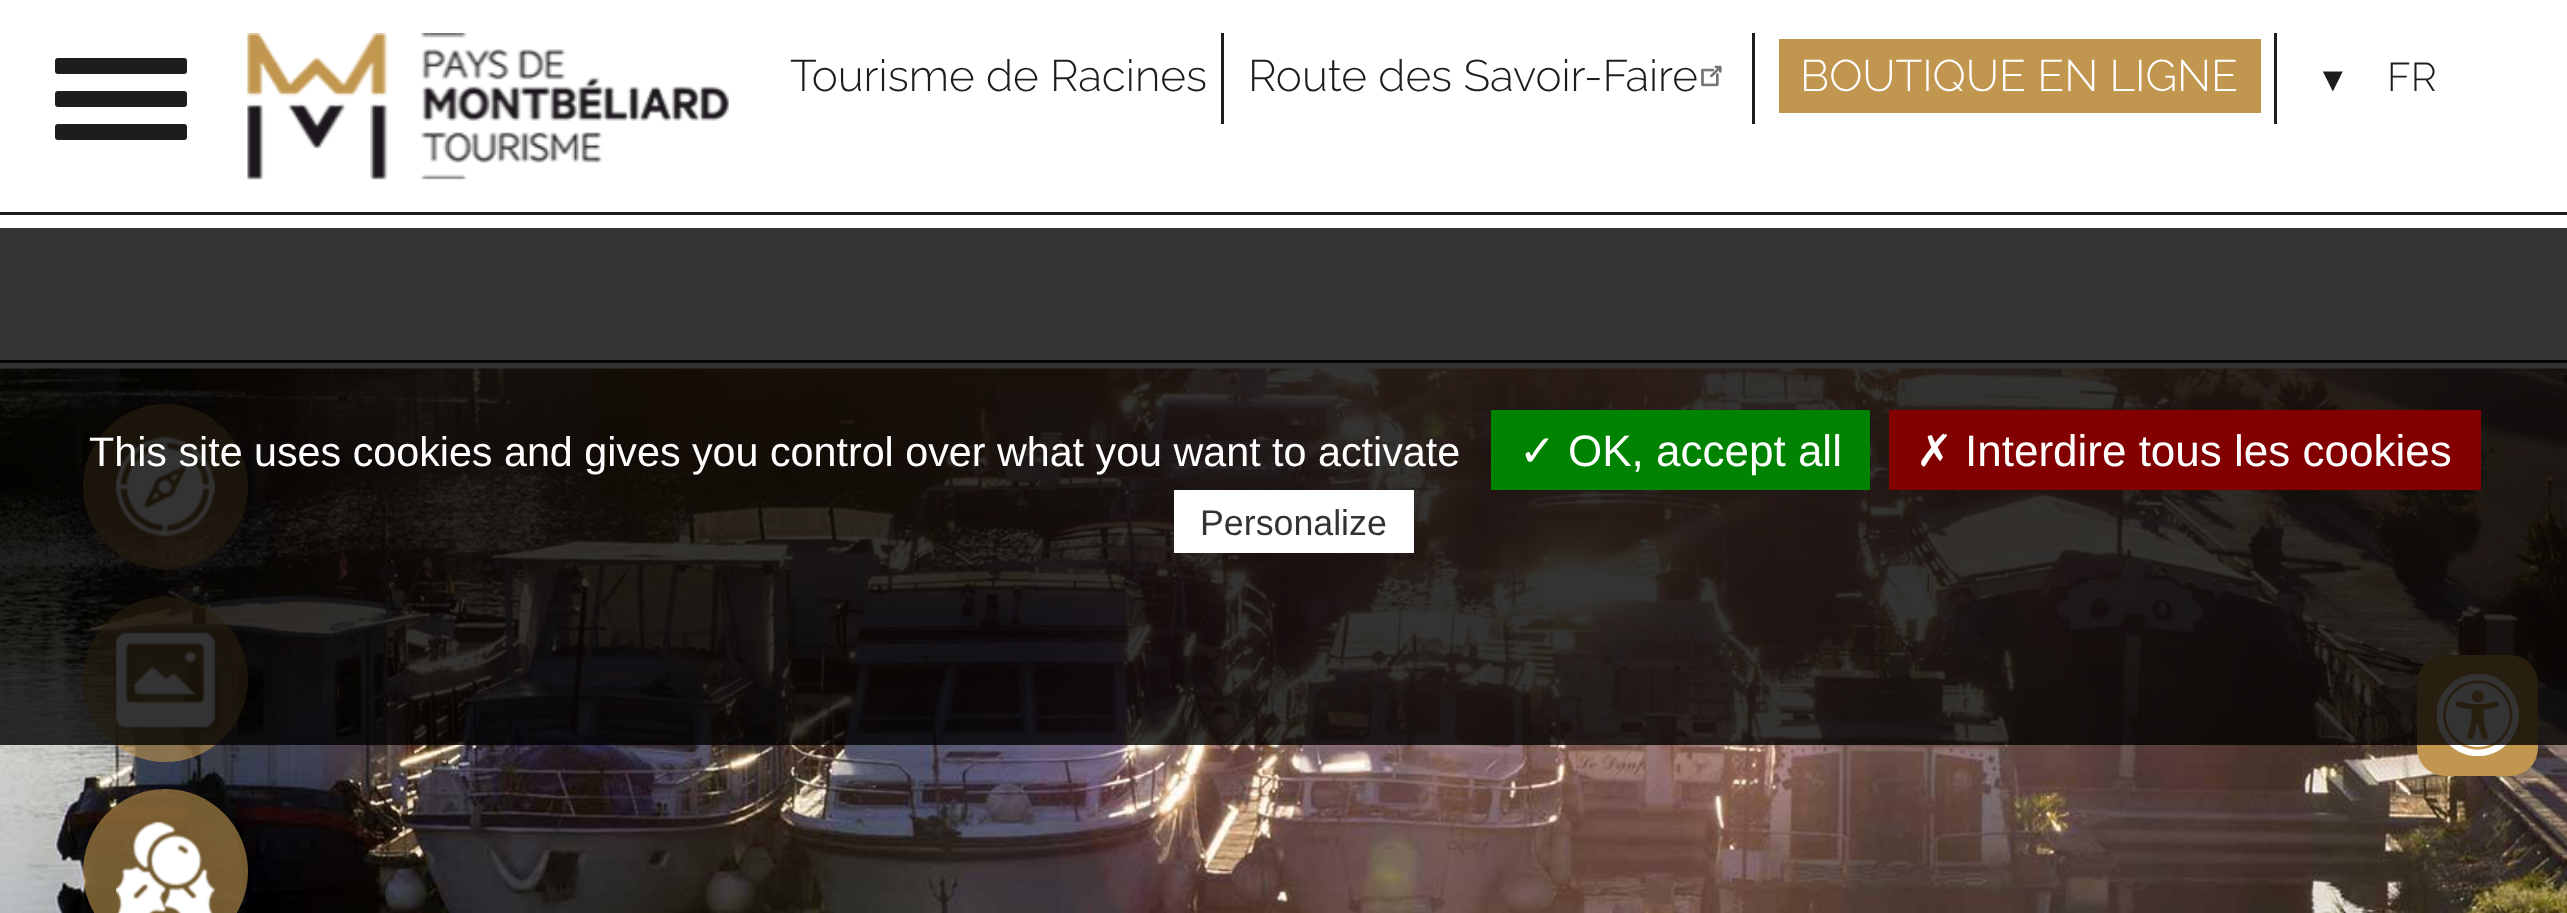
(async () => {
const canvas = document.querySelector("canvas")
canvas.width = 2567
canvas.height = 913
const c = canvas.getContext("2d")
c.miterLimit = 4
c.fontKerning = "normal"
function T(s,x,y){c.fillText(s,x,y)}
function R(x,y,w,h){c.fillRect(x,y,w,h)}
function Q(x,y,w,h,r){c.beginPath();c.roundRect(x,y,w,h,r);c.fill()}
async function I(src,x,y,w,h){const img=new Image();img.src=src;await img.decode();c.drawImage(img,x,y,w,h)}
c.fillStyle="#fff"
R(0,0,2567,913)
c.fillStyle="#1d1d1b"
Q(55,58,132,16,3)
Q(55,91,132,16,3)
Q(55,124,132,16,3)
R(0,212,2567,3)
await I("1.png",247,33,482,147)
R(1221,33,3,91)
c.font="300 44px Raleway"
T("Tourisme de Racines",790,91)
R(1752,33,3,91)
T("Route des Savoir-Faire",1248,91)
await I("2.png",1701,65,21,22)
R(2274,33,3,91)
c.fillStyle="#c1964f"
R(1779,39,482,74)
c.fillStyle="#fff"
T("BOUTIQUE EN LIGNE",1800,91)
c.font="34px Liberation Serif"
c.fillStyle="#1d1d1b"
T("▼",2316,91)
c.font="300 40px Raleway"
T("FR",2387,91)
R(0,360,2567,3)
await I("3.png",0,368,2567,545)
c.fillStyle="#c1964f99"
c.beginPath()
c.arc(165.5,486.5,82.5,0,7)
c.fill()
await I("4.png",116,436,99,101)
c.beginPath()
c.arc(165.5,679.5,82.5,0,7)
c.fill()
await I("5.png",116,632,99,96)
c.beginPath()
c.arc(165.5,871.5,82.5,0,7)
c.fill()
await I("6.png",116,821,99,92)
c.fillStyle="#c1974f"
Q(2417,655,121,121,28)
await I("7.png",2437,674,82,82)
c.fillStyle="#000000cc"
R(0,228,2567,517)
c.font="41.25px Liberation Sans"
c.fillStyle="#fff"
T("This site uses cookies and gives you control over what you want to activate",89,466)
c.fillStyle="#008300"
R(1491,410,379,80)
c.font="44px DejaVu Sans"
c.fillStyle="#fff"
T("✓",1519,466)
c.font="44px Liberation Sans"
T("OK, accept all",1568,466)
c.fillStyle="#830000"
R(1889,410,592,80)
c.font="44px DejaVu Sans"
c.fillStyle="#fff"
T("✗",1916,466)
c.font="44px Liberation Sans"
T("Interdire tous les cookies",1965,466)
R(1174,490,240,63)
c.font="35.75px Liberation Sans"
c.fillStyle="#333"
T("Personalize",1200,535)
})()
